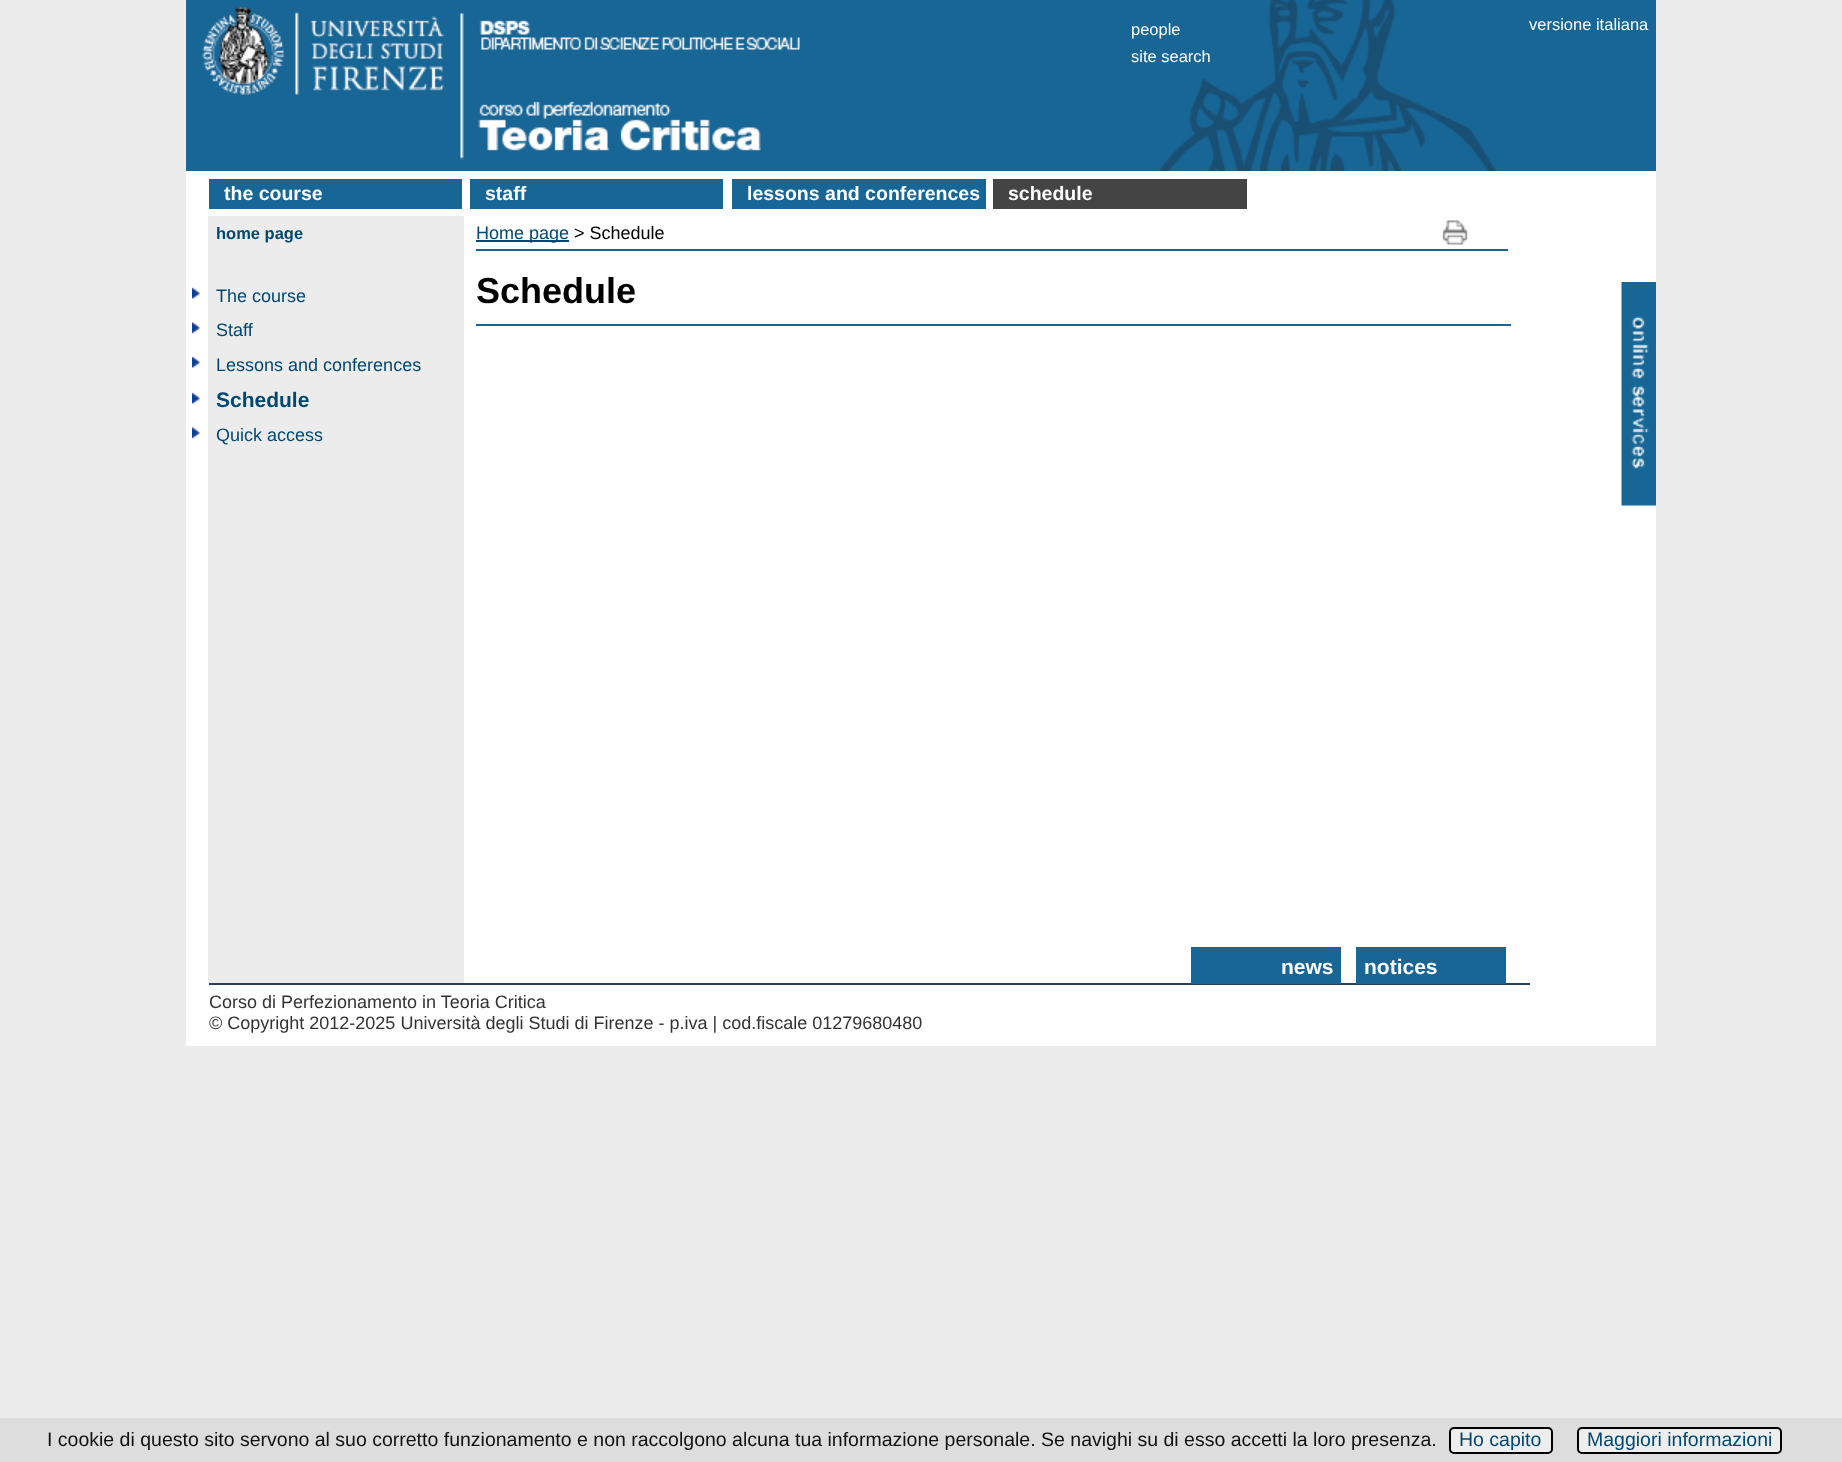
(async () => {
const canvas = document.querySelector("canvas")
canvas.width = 1842
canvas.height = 1462
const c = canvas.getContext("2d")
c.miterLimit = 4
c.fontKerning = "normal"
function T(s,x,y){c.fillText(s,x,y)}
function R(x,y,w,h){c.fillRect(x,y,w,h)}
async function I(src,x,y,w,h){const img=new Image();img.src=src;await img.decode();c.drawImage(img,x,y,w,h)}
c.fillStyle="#ececec"
R(0,0,1842,1462)
c.fillStyle="#fff"
R(186,171,1470,875)
c.fillStyle="#176696"
R(186,0,1470,171)
await I("1.png",202,0,1294,171)
c.font="16.5px Liberation Sans"
c.fillStyle="#fff"
T("versione italiana",1529,30)
T("people",1131,35)
T("site search",1131,62)
await I("2.png",1621,282,35,224)
c.fillStyle="#176696"
R(209,179,253,30)
c.font="bold 19.5px Liberation Sans"
c.fillStyle="#fff"
T("the course",224,200)
c.fillStyle="#176696"
R(470,179,253,30)
c.fillStyle="#fff"
T("staff",485,200)
c.fillStyle="#176696"
R(732,179,254,30)
c.fillStyle="#fff"
T("lessons and conferences",747,200)
c.fillStyle="#444"
R(993,179,254,30)
c.fillStyle="#fff"
T("schedule",1008,200)
c.fillStyle="#ececec"
R(208,216,256,768)
c.fillStyle="#26405f"
R(209,983,1321,2)
c.font="bold 16.5px Liberation Sans"
c.fillStyle="#004872"
T("home page",216,239)
await I("3.png",192,287,8,12)
c.font="18px Liberation Sans"
T("The course",216,302)
await I("4.png",192,322,8,12)
T("Staff",216,336)
await I("3.png",192,356,8,12)
T("Lessons and conferences",216,371)
await I("3.png",192,392,8,12)
c.font="bold 21px Liberation Sans"
T("Schedule",216,407)
await I("4.png",192,427,8,12)
c.font="18px Liberation Sans"
T("Quick access",216,441)
c.fillStyle="#176696"
R(476,249,1032,2)
c.fillStyle="#004872"
R(476,240,93,2)
T("Home page",476,239)
c.fillStyle="#000"
T("> Schedule",574,239)
await I("5.png",1442,220,26,25)
c.fillStyle="#176696"
R(476,324,1035,2)
c.font="bold 36px Liberation Sans"
c.fillStyle="#000"
T("Schedule",476,303)
c.fillStyle="#176696"
R(1191,947,150,37)
c.font="bold 21px Liberation Sans"
c.fillStyle="#fff"
T("news",1281,974)
c.fillStyle="#176696"
R(1356,947,150,37)
c.fillStyle="#fff"
T("notices",1364,974)
c.font="18px Liberation Sans"
c.fillStyle="#333"
T("Corso di Perfezionamento in Teoria Critica",209,1008)
T("© Copyright 2012-2025 Università degli Studi di Firenze - p.iva | cod.fiscale 01279680480",209,1029)
c.fillStyle="#ddd"
R(0,1418,1842,44)
c.font="19.5px Liberation Sans"
c.fillStyle="#111"
T("I cookie di questo sito servono al suo corretto funzionamento e non raccolgono alcuna tua informazione personale. Se navighi su di esso accetti la loro presenza.",47,1446)
c.fillStyle="#eee"
c.beginPath()
c.roundRect(1450,1428,102,25,4)
c.fill()
c.strokeStyle="#000"
c.lineWidth=2
c.stroke()
c.fillStyle="#004872"
T("Ho capito",1459,1446)
c.fillStyle="#eee"
c.beginPath()
c.roundRect(1578,1428,203,25,4)
c.fill()
c.stroke()
c.fillStyle="#004872"
T("Maggiori informazioni",1587,1446)
})()
